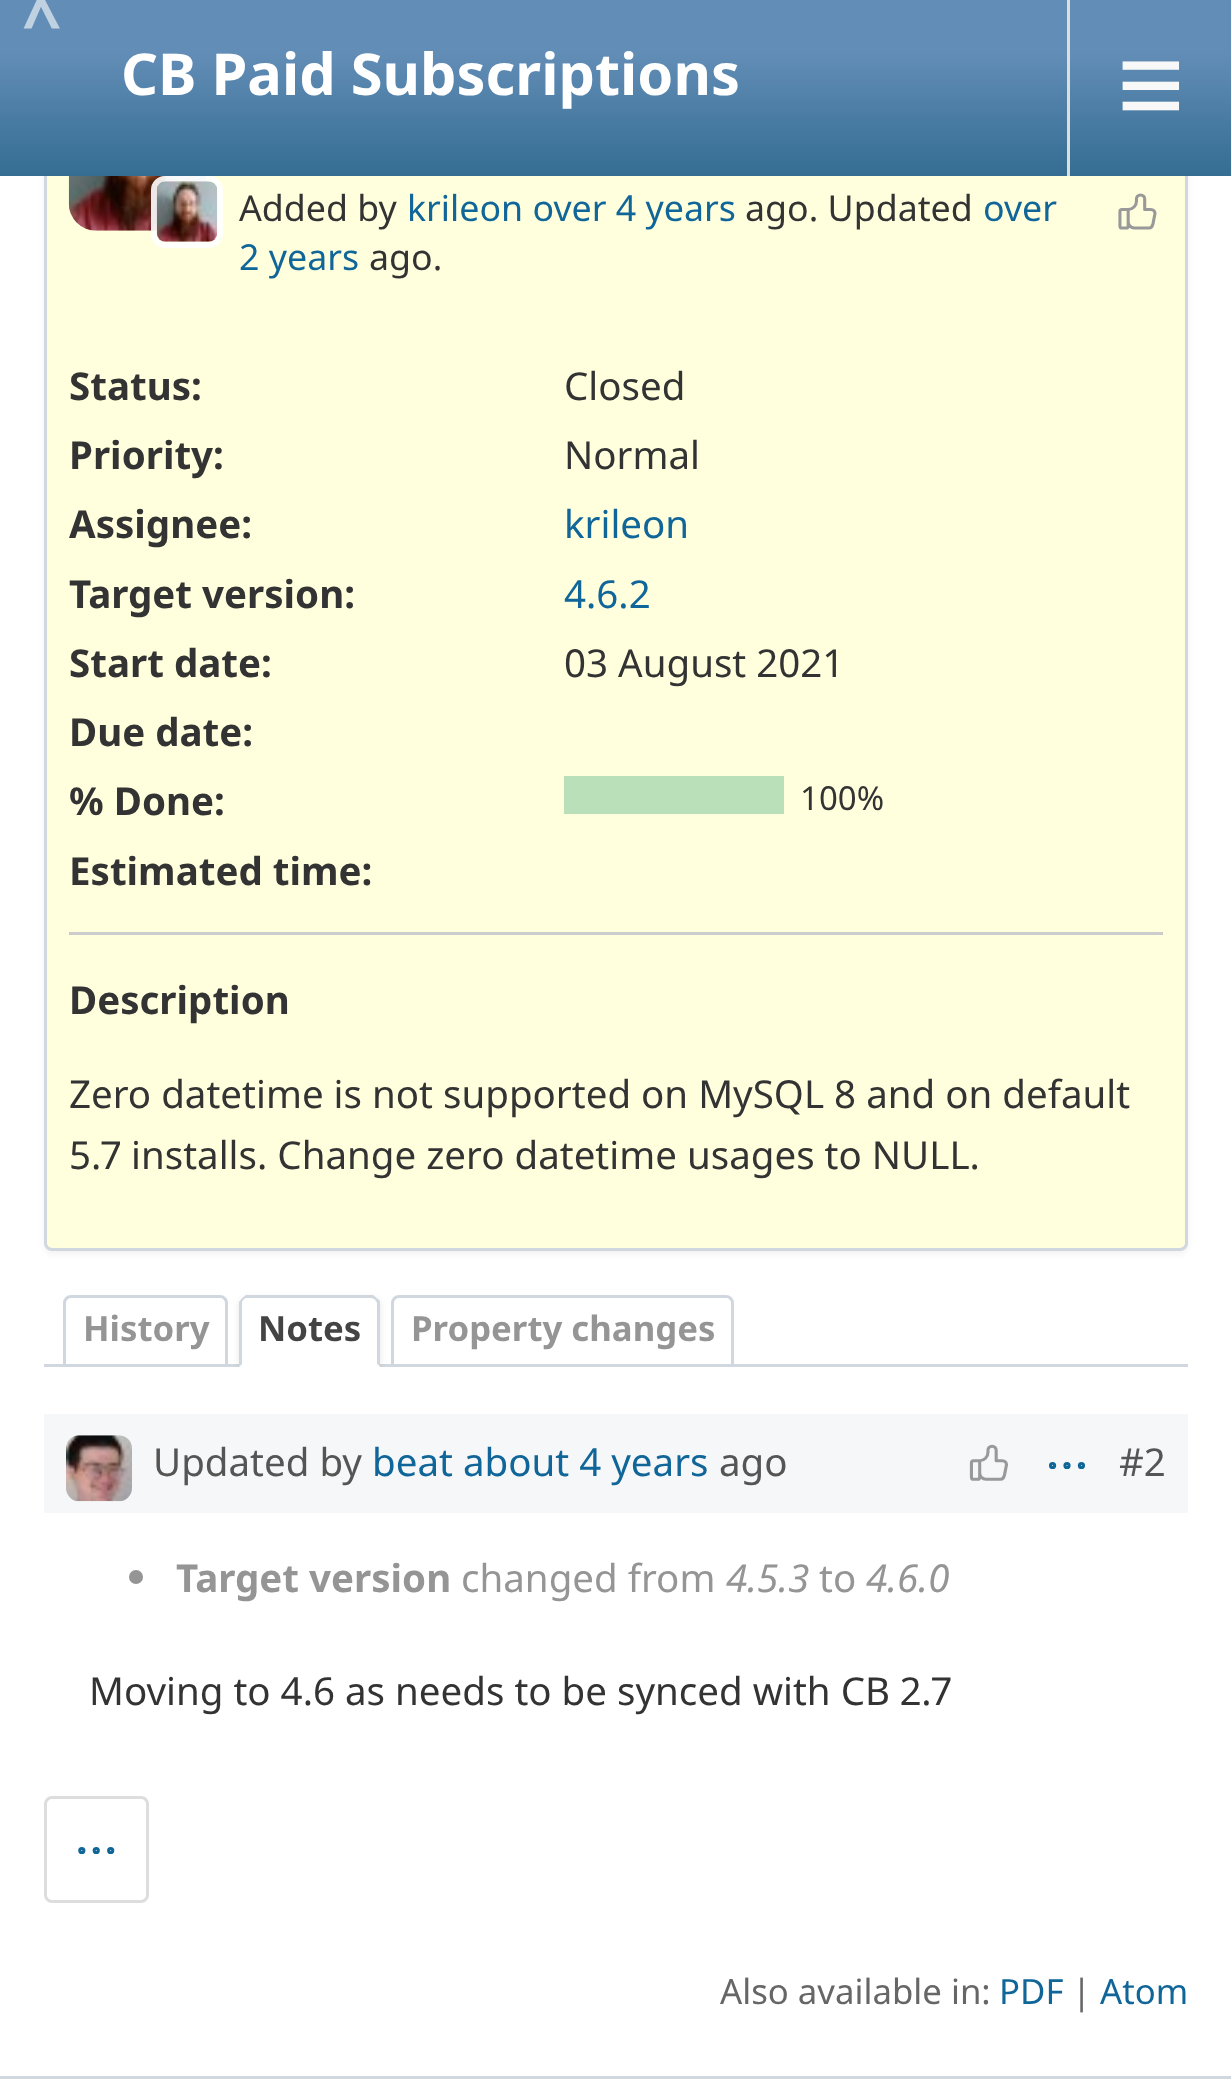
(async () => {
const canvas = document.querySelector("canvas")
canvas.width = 1231
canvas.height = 2084
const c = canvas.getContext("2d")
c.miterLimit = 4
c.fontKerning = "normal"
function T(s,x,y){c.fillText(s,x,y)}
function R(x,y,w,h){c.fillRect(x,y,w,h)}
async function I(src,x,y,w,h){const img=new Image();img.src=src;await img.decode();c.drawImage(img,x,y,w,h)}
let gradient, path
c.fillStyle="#fff"
R(0,0,1231,2084)
c.fillStyle="#0000000d"
c.filter="blur(3px)"
c.beginPath()
c.roundRect(44,72,1144,1182,8)
c.fill()
c.filter="none"
c.fillStyle="#ffd"
c.beginPath()
c.roundRect(45.5,70.5,1141,1179,6.5)
c.fill()
c.strokeStyle="#d0d7de"
c.lineWidth=3
c.stroke()
gradient = c.createLinearGradient(616,0,616,176)
gradient.addColorStop(.3,"#628db6")
gradient.addColorStop(1,"#356d92")
c.fillStyle = gradient
R(0,0,1231,176)
c.letterSpacing="10px"
c.font="bold 69px Noto Sans"
c.fillStyle="#c0d1e2"
T("^",22,46)
c.letterSpacing="0px"
c.font="bold 57.75px Noto Sans"
c.fillStyle="#fff"
T("CB Paid Subscriptions",121,95)
c.fillStyle="#ddd"
R(1067,0,3,176)
c.font="116px Liberation Sans"
c.fillStyle="#f8f8f8"
T("≡",1117,124)
await I("1.png",68,176,139,55)
c.beginPath()
c.roundRect(154,179,66,66,11)
c.strokeStyle="#ffffffe6"
c.lineWidth=6
c.stroke()
await I("2.png",156,181,62,61)
c.font="35.75px Noto Sans"
c.fillStyle="#333"
T("Added by",239,221)
c.fillStyle="#169"
T("krileon over 4 years",407,221)
c.fillStyle="#333"
T("ago. Updated",745,221)
c.fillStyle="#169"
T("over",983,221)
T("2 years",239,270)
c.fillStyle="#333"
T("ago.",369,270)
await I("3.png",1118,193,39,37)
c.font="bold 38.5px Noto Sans"
T("Status:",69,400)
c.font="38.5px Noto Sans"
T("Closed",564,400)
c.font="bold 38.5px Noto Sans"
T("Priority:",69,469)
c.font="38.5px Noto Sans"
T("Normal",564,469)
c.font="bold 38.5px Noto Sans"
T("Assignee:",69,538)
c.font="38.5px Noto Sans"
c.fillStyle="#169"
T("krileon",564,538)
c.font="bold 38.5px Noto Sans"
c.fillStyle="#333"
T("Target version:",69,608)
c.font="38.5px Noto Sans"
c.fillStyle="#169"
T("4.6.2",564,608)
c.font="bold 38.5px Noto Sans"
c.fillStyle="#333"
T("Start date:",69,677)
c.font="38.5px Noto Sans"
T("03 August 2021",564,677)
c.font="bold 38.5px Noto Sans"
T("Due date:",69,746)
T("% Done:",69,815)
c.fillStyle="#bae0ba"
R(564,776,220,38)
c.font="33px Noto Sans"
c.fillStyle="#333"
T("100%",800,810)
c.font="bold 38.5px Noto Sans"
T("Estimated time:",69,885)
c.fillStyle="#ccc"
R(69,932,1094,3)
c.fillStyle="#333"
T("Description",69,1014)
c.font="38.5px Noto Sans"
T("Zero datetime is not supported on MySQL 8 and on default",69,1108)
c.font="38.5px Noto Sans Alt"
T("5.7 installs. Change zero datetime usages to NULL.",69,1169)
c.fillStyle="#d0d7de"
R(44,1364,1144,3)
c.beginPath()
c.roundRect(64.5,1296.5,162,69,[6.5,6.5,0,0])
c.strokeStyle="#d0d7de"
c.lineWidth=3
c.stroke()
c.font="bold 34.75px Noto Sans"
c.fillStyle="#959595"
T("History",83,1341)
c.save()
c.beginPath()
c.rect(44,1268,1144,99)
c.clip()
c.fillStyle="#0000001a"
c.filter="blur(3px)"
c.beginPath()
c.roundRect(239,1298,141,72,8)
c.fill()
c.filter="none"
c.restore()
c.fillStyle="#fff"
c.beginPath()
c.roundRect(239,1295,141,72,[8,8,0,0])
c.fill()
c.fillStyle="#d0d7de"
path = new Path2D("M248 1298c-2 0-4 0-4 2l-2-2l4-3h127l4 3l-2 2c-1-1-2-2-4-2z")
c.fill(path)
path = new Path2D("M377 1298l3 3v66l-3-3v-60c0-2-1-3-2-4z")
c.fill(path)
c.fillStyle="#fff"
path = new Path2D("M380 1367l-3-3h-135l-3 3z")
c.fill(path)
c.fillStyle="#d0d7de"
path = new Path2D("M239 1367v-65l3-4l2 2c-2 0-2 2-2 4v60z")
c.fill(path)
c.fillStyle="#444"
T("Notes",258,1341)
c.beginPath()
c.roundRect(392.5,1296.5,340,69,[6.5,6.5,0,0])
c.stroke()
c.fillStyle="#959595"
T("Property changes",411,1341)
c.fillStyle="#f6f7f8"
R(44,1414,1144,99)
await I("4.png",66,1435,66,67)
c.font="38.5px Noto Sans"
c.fillStyle="#555"
T("Updated by",153,1476)
c.fillStyle="#169"
T("beat about 4 years",372,1476)
c.fillStyle="#555"
T("ago",719,1476)
await I("5.png",969,1444,39,37)
await I("6.png",1049,1462,36,7)
T("#2",1119,1476)
c.fillStyle="#959595"
c.beginPath()
c.arc(136,1577,7,0,7)
c.fill()
c.font="bold 38.5px Noto Sans"
T("Target version",176,1592)
c.font="38.5px Noto Sans"
T("changed from",461,1592)
c.font="italic 38.5px Noto Sans"
T("4.5.3",726,1592)
c.font="38.5px Noto Sans"
T("to",819,1592)
c.font="italic 38.5px Noto Sans"
T("4.6.0",866,1592)
c.font="38.5px Noto Sans Alt"
c.fillStyle="#333"
T("Moving to 4.6 as needs to be synced with CB 2.7",89,1705)
c.beginPath()
c.roundRect(45.5,1797.5,102,104,6.5)
c.strokeStyle="#ddd"
c.stroke()
await I("7.png",78,1847,37,7)
c.font="34.75px Noto Sans"
c.fillStyle="#666"
T("Also available in:",720,2004)
c.fillStyle="#169"
T("PDF",999,2004)
c.fillStyle="#666"
T("|",1072,2004)
c.fillStyle="#169"
T("Atom",1100,2004)
c.fillStyle="#d0d7de"
R(0,2076,1231,3)
})()
